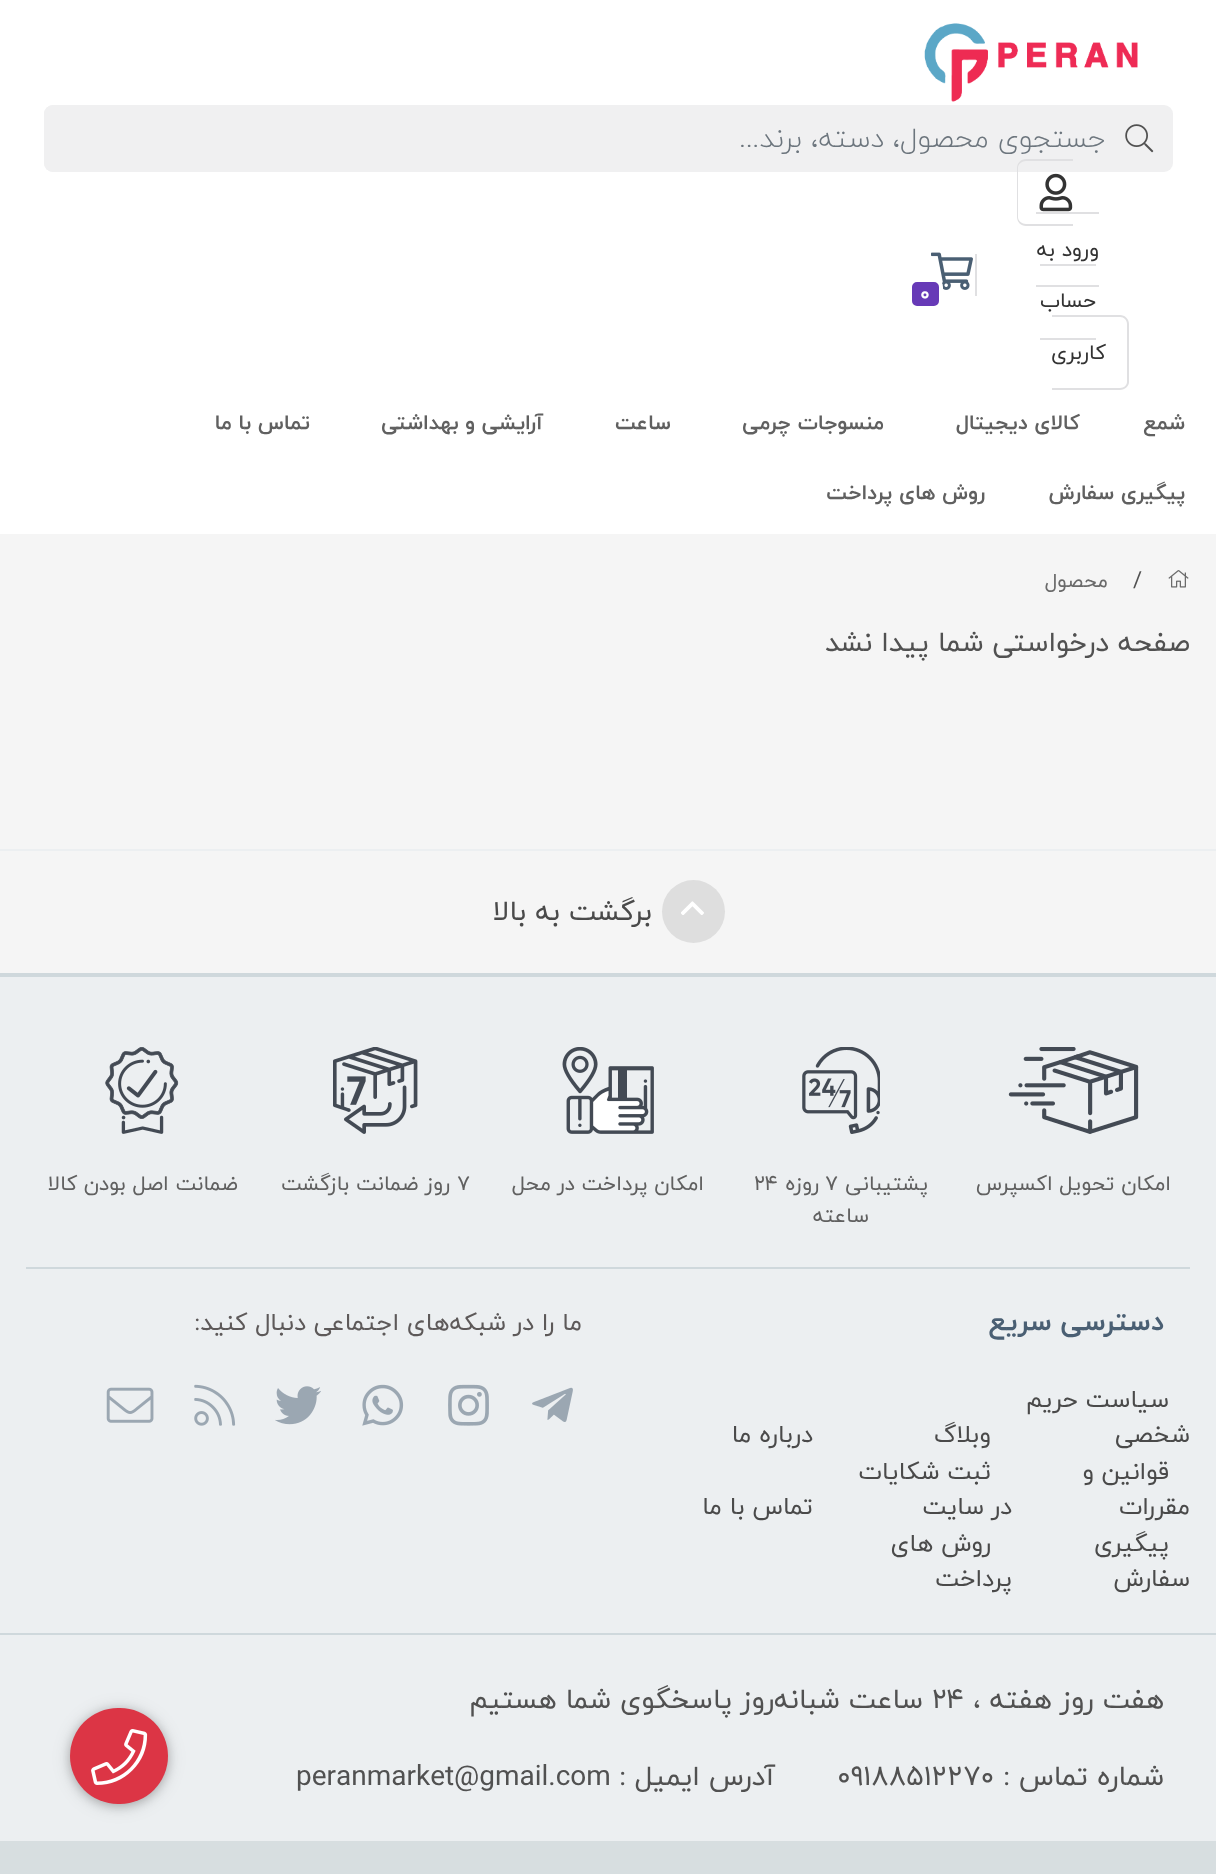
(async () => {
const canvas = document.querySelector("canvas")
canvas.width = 1216
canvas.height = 1874
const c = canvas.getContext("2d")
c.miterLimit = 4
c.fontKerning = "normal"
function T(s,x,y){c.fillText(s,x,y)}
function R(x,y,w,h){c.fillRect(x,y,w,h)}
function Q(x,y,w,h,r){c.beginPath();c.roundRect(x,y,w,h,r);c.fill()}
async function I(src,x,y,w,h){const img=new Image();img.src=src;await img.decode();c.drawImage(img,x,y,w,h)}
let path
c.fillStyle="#f5f5f5"
R(0,0,1216,1874)
c.fillStyle="#fff"
R(0,0,1216,534)
await I("1.png",924,23,214,79)
c.fillStyle="#f0f0f1"
Q(44,105,1129,67,9)
await I("2.png",1125,124,29,29)
Q(44,105,1062,67,9)
c.direction="rtl"
c.font="300 28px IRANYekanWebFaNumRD"
c.fillStyle="#6c757d"
T("جستجوی محصول، دسته، برند...",1106,147)
c.fillStyle="#e0e0e2"
path = new Path2D("M1026 159h47v67h-47c-5 0-9-4-9-9v-49c0-5 4-9 9-9zm0 2h47v63h-47c-4 0-8-3-8-7v-49c0-4 4-7 8-7z")
c.fill(path,"evenodd")
R(1036,212,63,2)
R(1036,285,63,2)
R(1040,264,56,2)
R(1040,338,56,2)
path = new Path2D("M1052 315h68c5 0 9 4 9 9v58c0 4-4 8-9 8h-68zm0 2h68c4 0 7 3 7 7v58c0 3-3 6-7 6h-68z")
c.fill(path,"evenodd")
await I("3.png",1039,173,34,39)
c.font="21px IRANYekanWebFaNumRD"
c.fillStyle="#333"
T("ورود به",1099,256)
T("حساب",1096,307)
T("کاربری",1106,359)
c.fillStyle="#e0e0e2"
R(975,254,2,42)
await I("4.png",931,252,42,38)
c.fillStyle="#673ab7"
c.beginPath()
c.roundRect(910,280,31,28,7)
c.fill()
c.strokeStyle="#fff"
c.lineWidth=4
c.stroke()
c.direction="ltr"
c.font="bold 20px IRANYekanWebFaNumRD"
c.fillStyle="#fff"
T("0",920,300)
c.direction="rtl"
c.font="bold 21px IRANYekanWebFaNumRD"
c.fillStyle="#606060"
T("شمع",1185,429)
T("کالای دیجیتال",1080,429)
T("منسوجات چرمی",884,429)
T("ساعت",671,429)
T("آرایشی و بهداشتی",543,429)
T("تماس با ما",310,429)
T("پیگیری سفارش",1185,499)
T("روش های پرداخت",985,499)
await I("5.png",1168,570,21,18)
c.direction="ltr"
c.font="22px IRANYekanWebFaNumRD"
c.fillStyle="#515151"
T("/",1133,587)
c.direction="rtl"
c.font="20px IRANYekanWebFaNumRD"
c.fillStyle="#6a6a6a"
T("محصول",1108,587)
c.font="28px IRANYekanWebFaNumRD"
c.fillStyle="#515151"
T("صفحه درخواستی شما پیدا نشد",1190,651)
c.fillStyle="#eceff1"
R(0,849,1216,2)
c.fillStyle="#dedede"
c.beginPath()
c.arc(693.5,911.5,31.5,0,7)
c.fill()
await I("6.png",681,901,23,14)
c.fillStyle="#4a4a4a"
T("برگشت به بالا",652,920)
c.fillStyle="#cfd8dc"
R(0,973,1216,4)
c.fillStyle="#eceff1"
R(0,977,1216,864)
c.fillStyle="#cfd8dc"
R(26,1267,1164,2)
await I("7.png",1008,1047,131,87)
c.font="21px IRANYekanWebFaNumRD"
c.fillStyle="#606060"
T("امکان تحویل اکسپرس",1171,1190)
await I("8.png",802,1047,78,87)
T("پشتیبانی",928,1190)
c.direction="ltr"
T("۷",825,1190)
c.direction="rtl"
T("روزه",819,1190)
c.direction="ltr"
T("۲۴",754,1190)
c.direction="rtl"
T("ساعته",869,1222)
await I("9.png",562,1047,92,87)
T("امکان پرداخت در محل",704,1190)
await I("10.png",333,1047,85,87)
c.direction="ltr"
T("۷",457,1190)
c.direction="rtl"
T("روز ضمانت بازگشت",450,1190)
await I("11.png",105,1047,74,87)
T("ضمانت اصل بودن کالا",238,1190)
c.fillStyle="#cfd8dc"
R(0,1633,1216,2)
c.font="bold 28px IRANYekanWebFaNumRD"
c.fillStyle="#4a5f73"
T("دسترسی سریع",1164,1330)
c.font="24.5px IRANYekanWebFaNumRD"
c.fillStyle="#4a4a4a"
T("سیاست حریم",1169,1407)
T("شخصی",1190,1442)
T("وبلاگ",991,1442)
T("درباره ما",813,1442)
T("قوانین و",1169,1479)
T("مقررات",1190,1514)
T("ثبت شکایات",991,1479)
T("در سایت",1012,1514)
T("تماس با ما",813,1514)
T("پیگیری",1169,1551)
T("سفارش",1190,1586)
T("روش های",991,1551)
T("پرداخت",1012,1586)
c.fillStyle="#5d5959"
T("ما را در شبکه‌های اجتماعی دنبال کنید:",582,1330)
await I("12.png",532,1387,41,35)
await I("13.png",448,1384,41,42)
await I("14.png",362,1384,42,42)
await I("15.png",275,1386,46,39)
await I("16.png",194,1384,42,42)
await I("17.png",106,1387,48,36)
c.font="28px IRANYekanWebFaNumRD"
c.fillStyle="#515151"
T("هفت روز هفته ،",1164,1708)
c.direction="ltr"
T("۲۴",932,1708)
c.direction="rtl"
T("ساعت شبانه‌روز پاسخگوی شما هستیم",923,1708)
T("شماره تماس :",1164,1785)
c.direction="ltr"
T("09188512270",837,1785)
c.direction="rtl"
T("آدرس ایمیل :",775,1785)
c.direction="ltr"
T("peranmarket@gmail.com",296,1785)
c.fillStyle="#d7dee0"
R(0,1841,1216,33)
c.fillStyle="#00000026"
c.filter="blur(9px)"
c.beginPath()
c.roundRect(70,1710,98,96,48)
c.fill()
c.filter="none"
c.fillStyle="#00000033"
c.filter="blur(5px)"
c.beginPath()
c.roundRect(70,1710,98,96,48)
c.fill()
c.filter="none"
c.fillStyle="#dc3545"
Q(70,1708,98,96,48)
await I("18.png",91,1729,57,56)
})()
